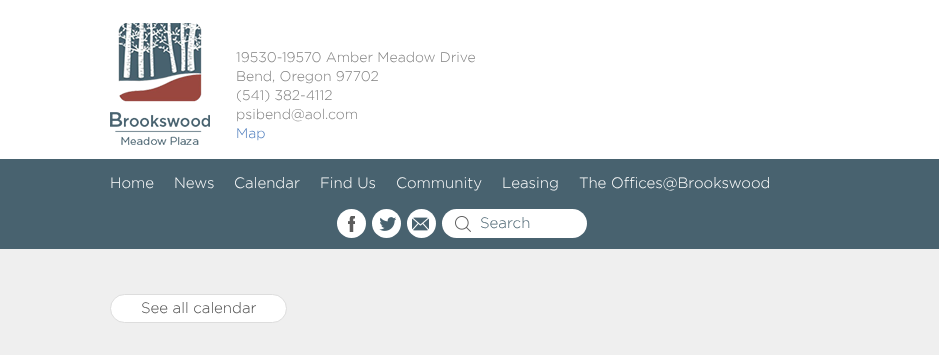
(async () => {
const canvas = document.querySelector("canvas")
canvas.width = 939
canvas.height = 355
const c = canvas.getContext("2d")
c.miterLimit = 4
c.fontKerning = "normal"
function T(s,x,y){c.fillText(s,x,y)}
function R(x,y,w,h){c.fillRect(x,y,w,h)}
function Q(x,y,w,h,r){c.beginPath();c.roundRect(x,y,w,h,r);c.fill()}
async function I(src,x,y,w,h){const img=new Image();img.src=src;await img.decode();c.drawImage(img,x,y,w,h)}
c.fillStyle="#efefef"
R(0,0,939,355)
c.fillStyle="#fff"
R(0,0,939,159)
await I("1.png",110,23,100,122)
c.font="300 14px Gotham"
c.fillStyle="#828282"
T("19530-19570 Amber Meadow Drive",236,62)
T("Bend, Oregon 97702",236,81)
T("(541) 382-4112",236,100)
T("psibend@aol.com",236,119)
c.fillStyle="#4e7dbd"
T("Map",236,138)
c.fillStyle="#48626f"
R(0,159,939,90)
c.font="300 15px Gotham"
c.fillStyle="#fff"
T("Home",110,188)
T("News",174,188)
T("Calendar",234,188)
T("Find Us",320,188)
T("Community",396,188)
T("Leasing",502,188)
T("The Offices@Brookswood",579,188)
c.beginPath()
c.arc(351.5,223.5,14.5,0,7)
c.fill()
await I("2.png",348,216,7,16)
c.beginPath()
c.arc(386.5,223.5,14.5,0,7)
c.fill()
await I("3.png",379,217,17,14)
c.beginPath()
c.arc(421.5,223.5,14.5,0,7)
c.fill()
await I("4.png",412,217,17,14)
Q(442,209,145,29,14.5)
await I("5.png",455,216,16,16)
c.fillStyle="#48626f"
T("Search",480,228)
c.fillStyle="#fff"
c.beginPath()
c.roundRect(110.5,294.5,176,28,14)
c.fill()
c.strokeStyle="#ddd"
c.stroke()
c.fillStyle="#4c4c4c"
T("See all calendar",141,313)
})()
